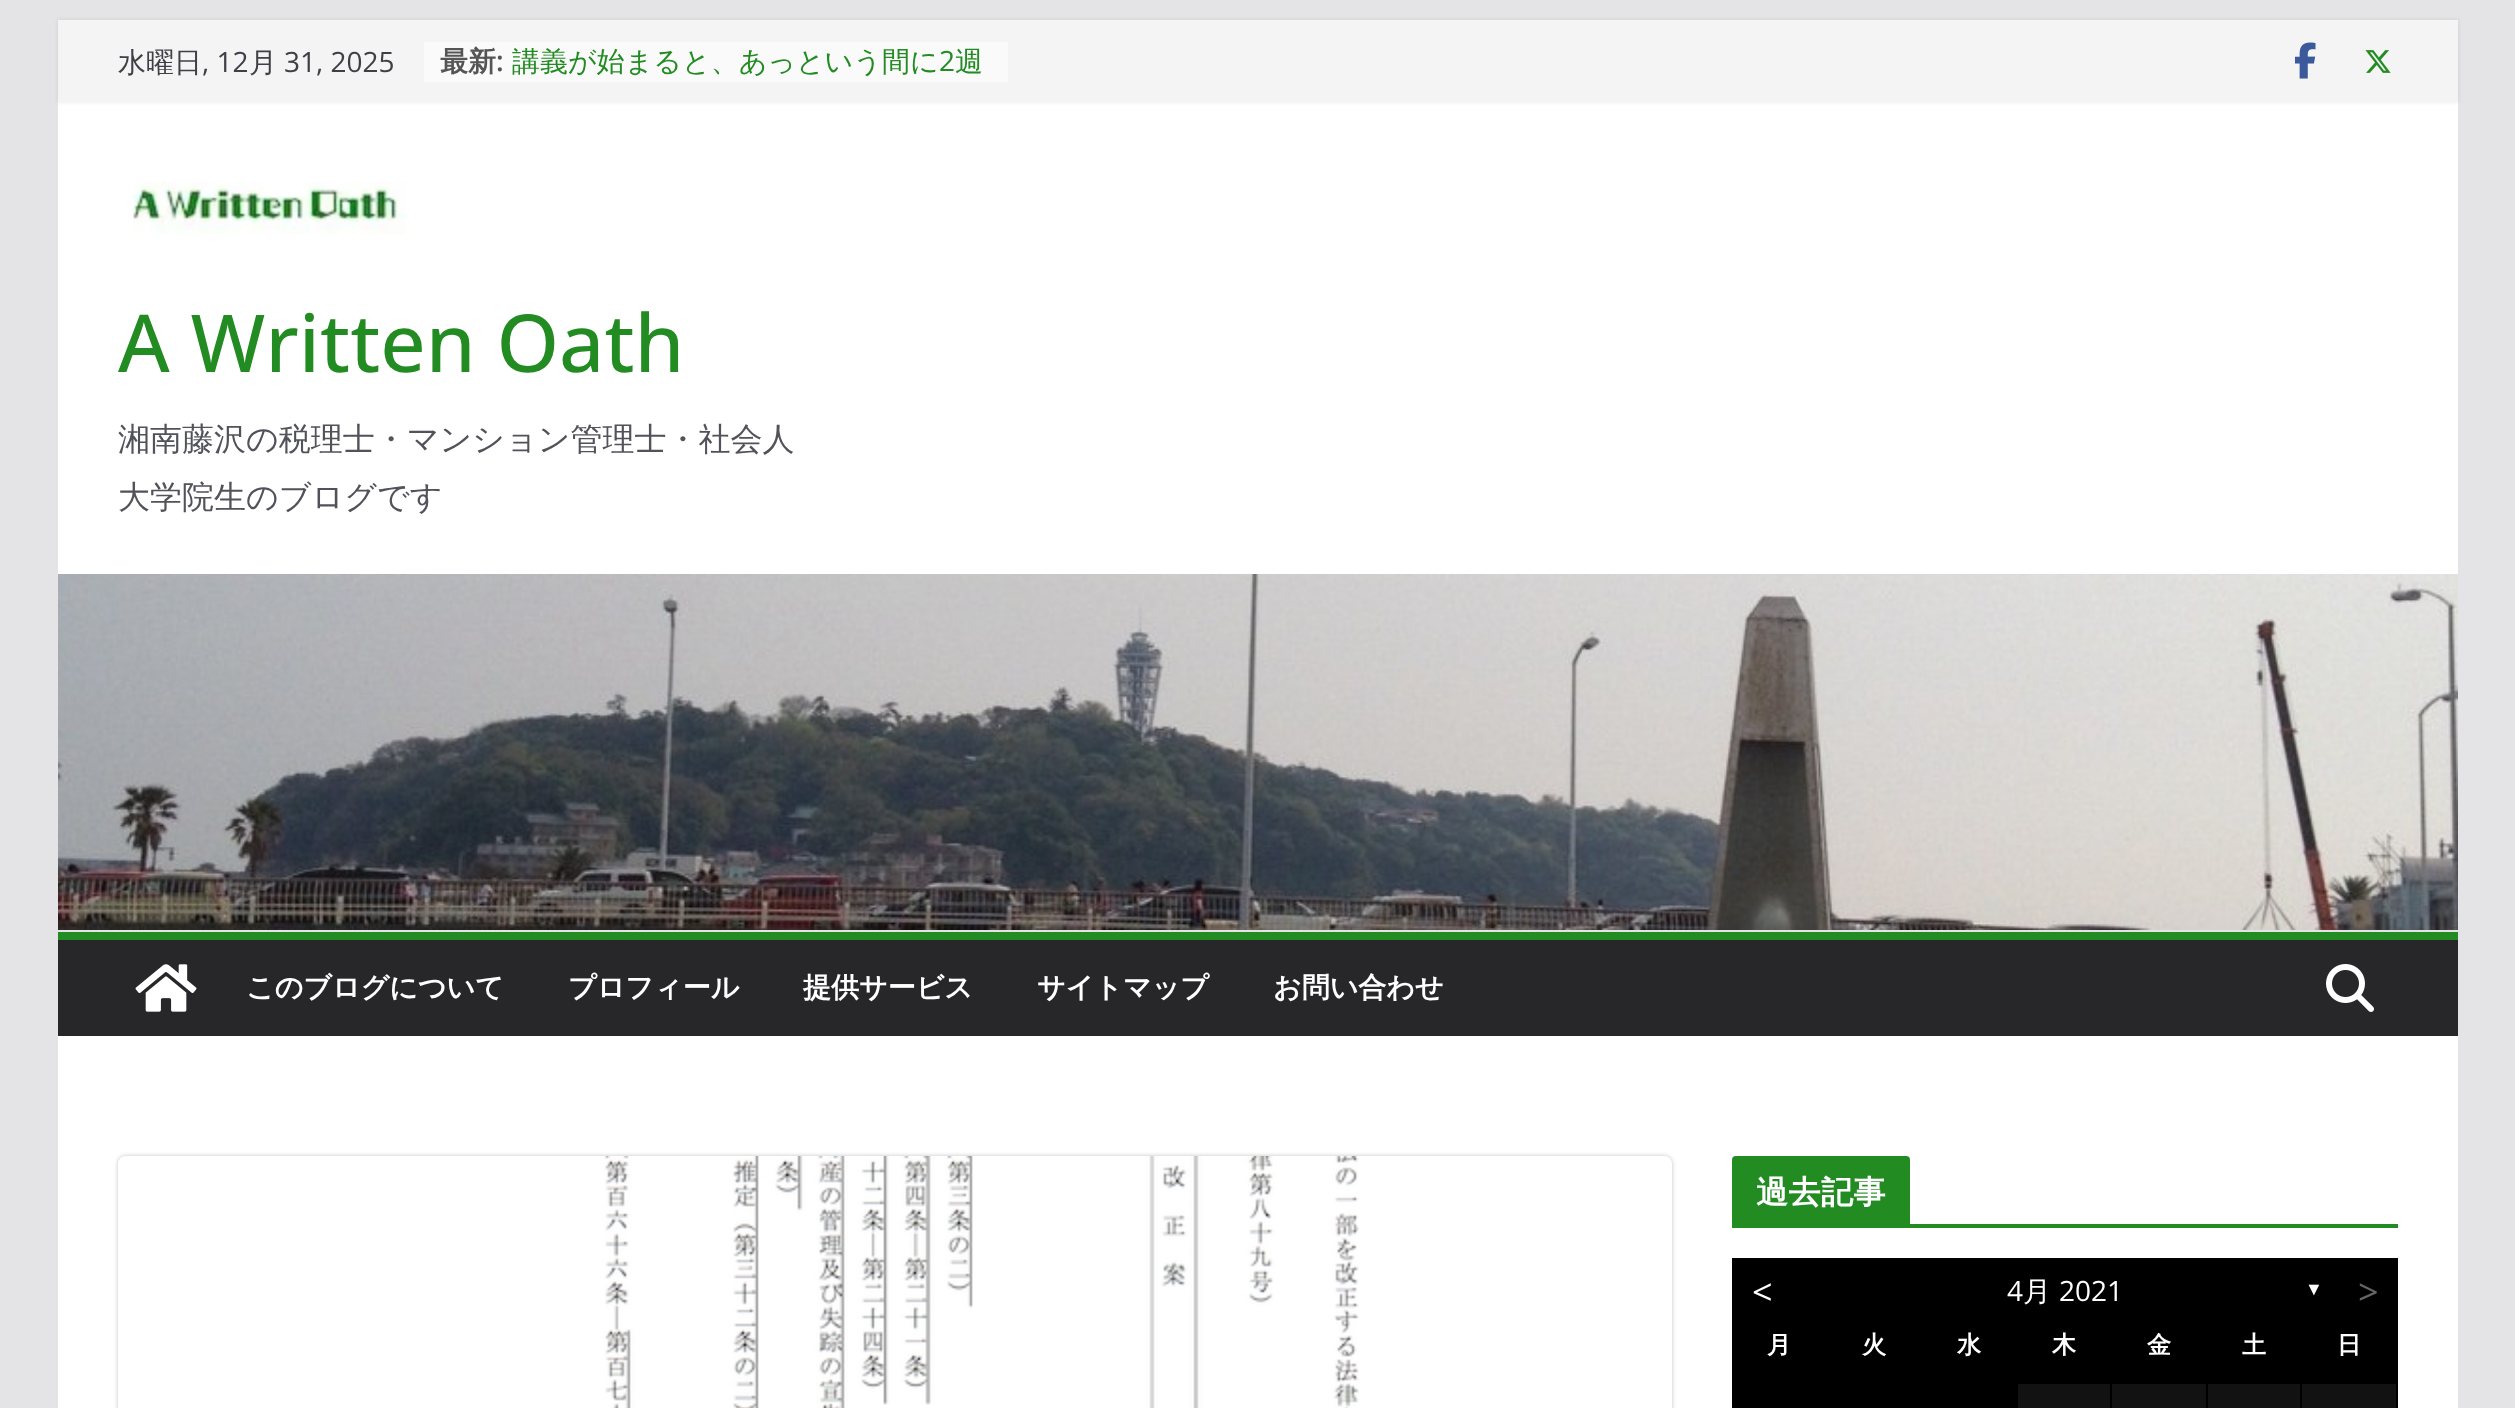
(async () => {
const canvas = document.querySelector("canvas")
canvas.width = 2515
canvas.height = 1408
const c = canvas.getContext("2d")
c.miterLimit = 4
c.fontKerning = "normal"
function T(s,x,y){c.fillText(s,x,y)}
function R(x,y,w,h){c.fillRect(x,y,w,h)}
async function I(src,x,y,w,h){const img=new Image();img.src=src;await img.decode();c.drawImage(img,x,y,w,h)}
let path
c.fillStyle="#e4e4e7"
R(0,0,2515,1408)
c.fillStyle="#fff"
R(58,102,2400,472)
c.fillStyle="#0000001a"
c.filter="blur(2px)"
c.beginPath()
c.rect(58,20,2400,82)
c.fill()
c.filter="none"
c.fillStyle="#f4f4f5"
R(58,20,2400,82)
c.font="500 28px WenQuanYi Zen Hei"
c.fillStyle="#3f3f46"
T("水曜日",118,72)
c.font="28px Open Sans"
T(", 12",202,72)
c.font="500 28px WenQuanYi Zen Hei"
T("月",249,72)
c.font="28px Open Sans"
T("31, 2025",284,72)
c.fillStyle="#fafafa"
R(424,42,584,40)
c.font="bold 28px WenQuanYi Zen Hei"
c.fillStyle="#555"
T("最新",440,71)
c.font="600 28px Open Sans"
T(":",496,71)
c.font="500 28px WenQuanYi Zen Hei"
c.fillStyle="#228b22"
T("講義が始まると、あっという間に",512,71)
c.font="28px Open Sans"
T("2",939,71)
c.font="500 28px WenQuanYi Zen Hei"
T("週",955,71)
await I("1.png",2295,42,21,37)
await I("2.png",2365,50,26,23)
await I("3.png",133,181,273,54)
c.font="500 80px Open Sans"
T("A Written Oath",118,372)
c.font="500 32px WenQuanYi Zen Hei"
c.fillStyle="#52525b"
T("湘南藤沢の税理士・マンション管理士・社会人",118,450)
T("大学院生のブログです",118,508)
await I("4.png",58,574,2400,356)
c.fillStyle="#27272a"
R(58,940,2400,96)
c.fillStyle="#228b22"
R(58,932,2400,8)
await I("5.png",135,964,62,48)
c.font="bold 28px WenQuanYi Zen Hei"
c.fillStyle="#fff"
T("このブログについて",246,997)
T("プロフィール",568,997)
T("提供サービス",803,997)
T("サイトマップ",1037,997)
T("お問い合わせ",1273,997)
await I("6.png",2326,964,48,48)
R(58,1036,2400,372)
c.save()
path = new Path2D("M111 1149h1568v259h-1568zm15 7h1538c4.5 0 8 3.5 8 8v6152c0 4.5-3.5 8-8 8h-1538c-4.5 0-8-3.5-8-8v-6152c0-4.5 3.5-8 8-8z")
c.clip(path,"evenodd")
c.fillStyle="#0000003d"
c.filter="blur(2px)"
c.beginPath()
c.roundRect(118,1156,1554,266,8)
c.fill()
c.filter="none"
c.restore()
await I("7.png",604,1156,755,252)
c.fillStyle="#228b22"
R(1732,1224,666,4)
c.beginPath()
c.roundRect(1732,1156,178,68,[4,4,0,0])
c.fill()
c.letterSpacing="0.5px"
c.font="bold 32px WenQuanYi Zen Hei"
c.fillStyle="#fff"
T("過去記事",1756,1203)
c.fillStyle="#000"
R(1732,1258,666,126)
c.letterSpacing="0px"
c.font="36px Open Sans"
c.fillStyle="#fff"
T("<",1752,1305)
c.font="28px Open Sans"
T("4",2007,1301)
c.font="500 28px WenQuanYi Zen Hei"
T("月",2023,1301)
c.font="28px Open Sans"
T("2021",2059,1301)
c.font="18px Liberation Sans"
T("▼",2305,1295)
c.font="36px Open Sans"
c.fillStyle="#666"
T(">",2358,1305)
c.font="bold 24px WenQuanYi Zen Hei"
c.fillStyle="#fff"
T("月",1767,1353)
T("火",1862,1353)
T("水",1957,1353)
T("木",2052,1353)
T("金",2147,1353)
T("土",2242,1353)
T("日",2337,1353)
c.fillStyle="#000"
R(1732,1384,286,24)
c.fillStyle="#121212"
R(2018,1384,92,24)
c.fillStyle="#000"
R(2110,1384,2,24)
c.fillStyle="#121212"
R(2112,1384,94,24)
c.fillStyle="#000"
R(2206,1384,2,24)
c.fillStyle="#121212"
R(2208,1384,92,24)
c.fillStyle="#000"
R(2300,1384,2,24)
c.fillStyle="#121212"
R(2302,1384,94,24)
c.fillStyle="#000"
R(2396,1384,2,24)
})()
